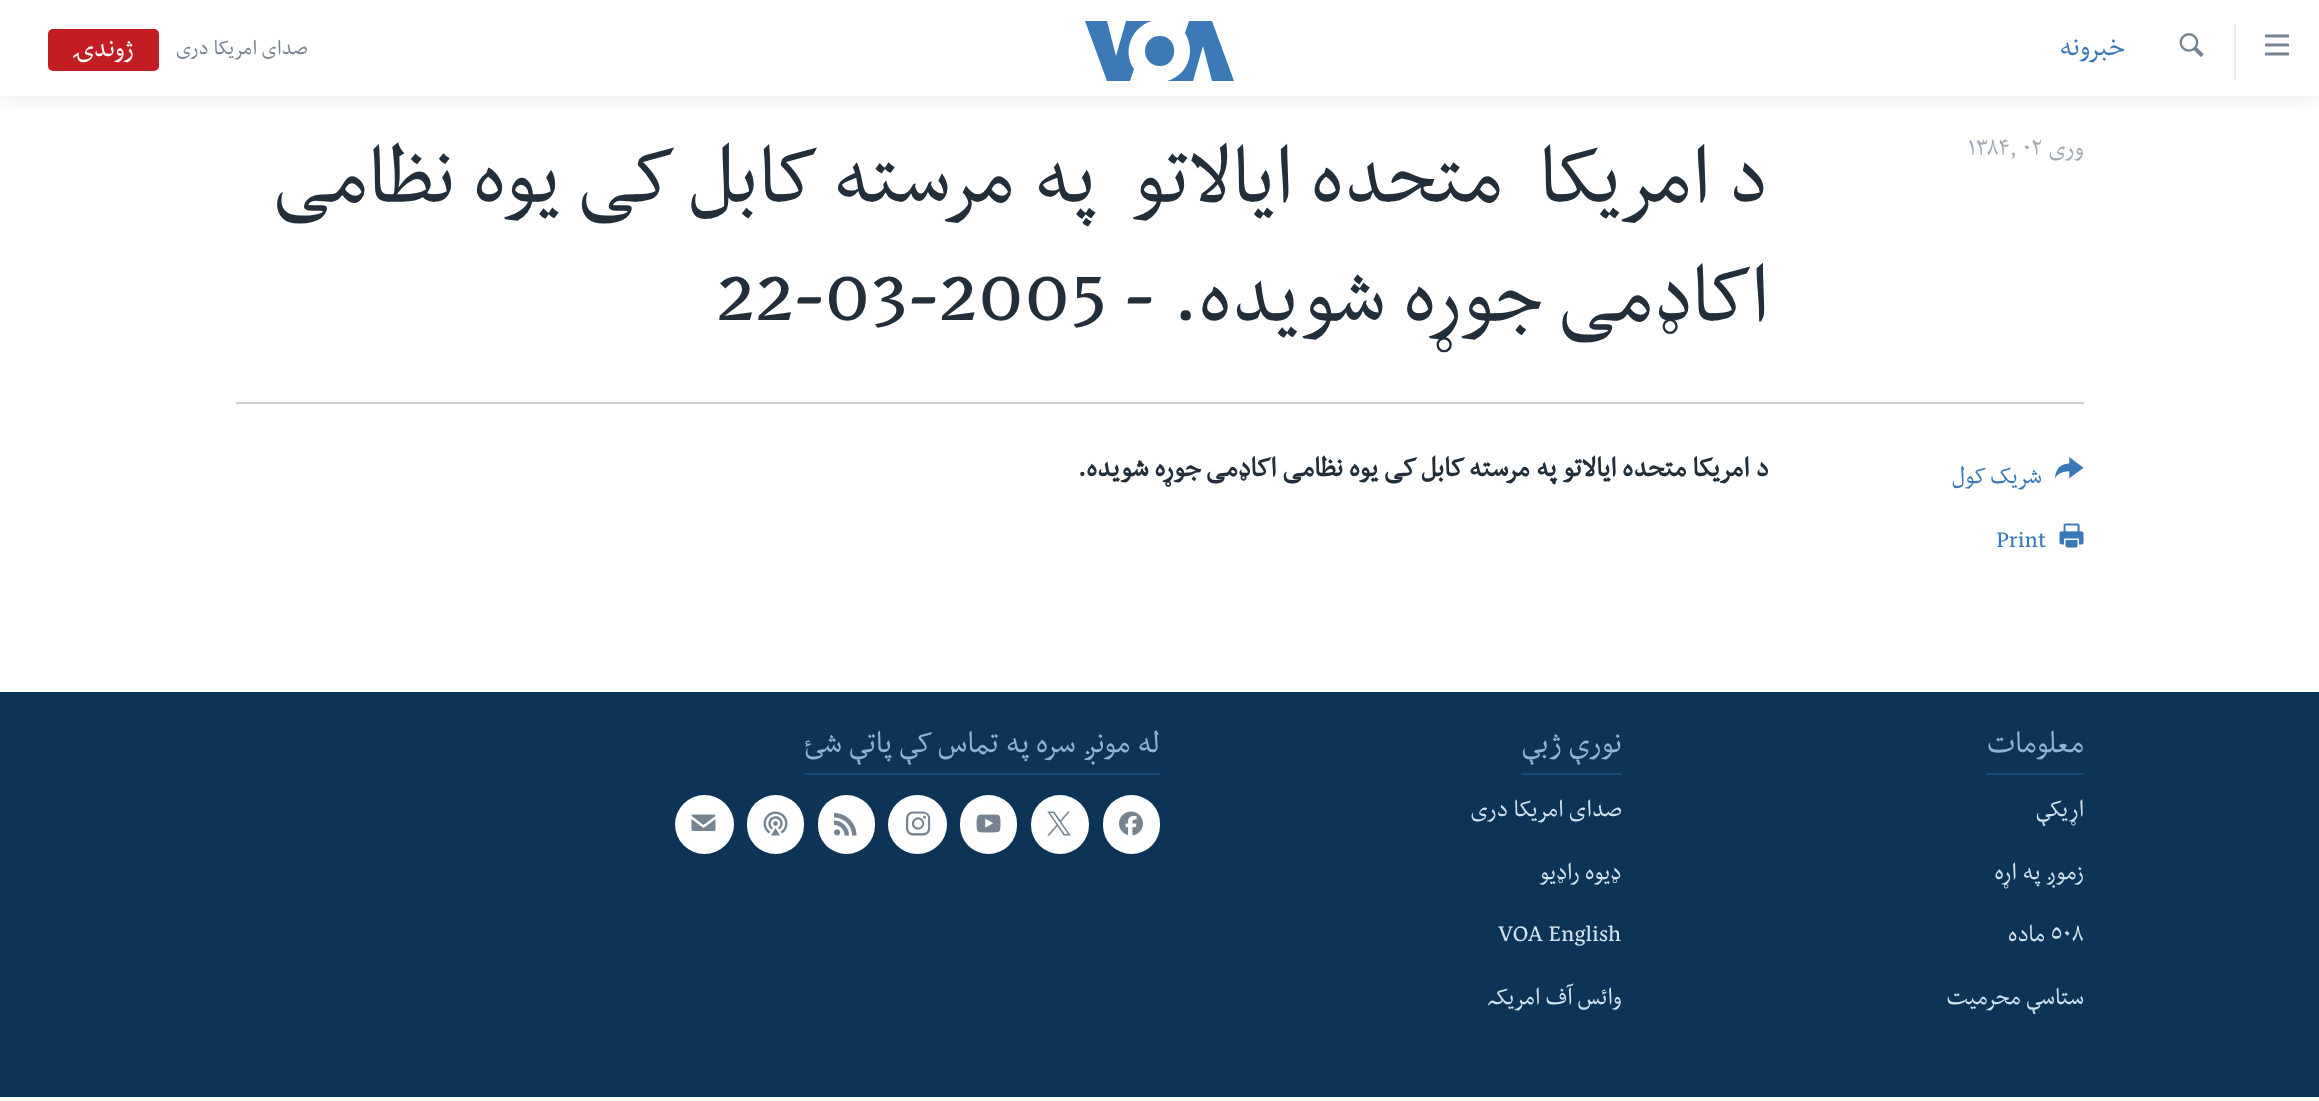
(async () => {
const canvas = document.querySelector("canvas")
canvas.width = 2319
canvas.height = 1101
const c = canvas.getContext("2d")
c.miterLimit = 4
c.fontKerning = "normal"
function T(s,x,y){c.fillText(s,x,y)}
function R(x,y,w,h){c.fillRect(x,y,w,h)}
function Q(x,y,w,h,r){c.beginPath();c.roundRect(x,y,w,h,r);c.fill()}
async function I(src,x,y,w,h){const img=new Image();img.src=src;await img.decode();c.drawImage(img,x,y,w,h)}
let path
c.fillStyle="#fff"
R(0,0,2319,1101)
c.save()
c.beginPath()
c.rect(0,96,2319,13)
c.clip()
c.fillStyle="#0000001a"
c.filter="blur(15px)"
c.beginPath()
c.rect(0,0,2319,96)
c.fill()
c.filter="none"
c.restore()
await I("1.png",2265,34,24,22)
c.fillStyle="#ebebeb"
R(2234,24,2,56)
await I("2.png",2179,33,25,24)
c.direction="rtl"
c.font="31.5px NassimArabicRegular"
c.fillStyle="#3a79b7"
T("خبرونه",2125,55)
c.fillStyle="#3b79b7"
path = new Path2D("M1134 69l-4 12h-23l-22-60h22l9 35l10-35h26c-21 6-30 31-18 48zm26-33c-20 0-20 30 0 30c19 0 19-30 0-30zm30 15c0 14-9 26-23 30h26l10-35l9 35h22l-22-60h-23l-4 12c3 5 5 11 5 18z")
c.fill(path)
c.font="24px NassimArabicRegular"
c.fillStyle="#768492"
T("صدای امریکا دری",308,54)
c.fillStyle="#c11d22"
Q(48,29,111,42,5)
c.font="30px NassimArabicRegular"
c.fillStyle="#fff"
T("ژوندۍ",134,56)
c.font="27.5px NassimArabicRegular"
c.fillStyle="#a1aab4"
T("وری",2084,155)
c.direction="ltr"
T("۱۳۸۴, ۰۲",1968,155)
c.direction="rtl"
c.font="94.5px NassimArabicRegular"
c.fillStyle="#222f3a"
T("د امریکا  متحده ایالاتو  په مرسته کابل کی یوه نظامی",1769,201)
T("اکاډمی جوړه شویده. -",1769,320)
c.direction="ltr"
T("22-03-2005",716,320)
c.fillStyle="#cbd1d6"
R(236,402,1848,2)
await I("3.png",2055,457,29,22)
c.direction="rtl"
c.font="27.5px NassimArabicRegular"
c.fillStyle="#3a79b7"
T("شریک کول",2042,483)
await I("4.png",2059,523,25,25)
c.direction="ltr"
T("Print",1996,547)
c.direction="rtl"
c.font="bold 31.5px NassimArabicRegular"
c.fillStyle="#222f3a"
T("د امریکا متحده ایالاتو په مرسته کابل کی یوه نظامی اکاډمی جوړه شویده.",1769,476)
c.fillStyle="#0d3456"
R(0,692,2319,405)
c.fillStyle="#134976"
R(1986,773,98,2)
c.font="35.5px NassimArabicRegular"
c.fillStyle="#8db3d4"
T("معلومات",2084,752)
c.font="27.5px NassimArabicRegular"
c.fillStyle="#d1e1ee"
T("اړیکې",2084,816)
T("زموږ په اړه",2084,879)
c.direction="ltr"
T("٥٠٨",2050,941)
c.direction="rtl"
T("ماده",2045,941)
T("ستاسې محرمیت",2084,1004)
c.fillStyle="#134976"
R(1521,773,101,2)
c.font="35.5px NassimArabicRegular"
c.fillStyle="#8db3d4"
T("نورې ژبې",1622,752)
c.font="27.5px NassimArabicRegular"
c.fillStyle="#d1e1ee"
T("صدای امریکا دری",1622,816)
T("ډیوه راډیو",1622,879)
c.direction="ltr"
T("VOA English",1498,941)
c.direction="rtl"
T("وائس آف امریکہ",1622,1004)
c.fillStyle="#134976"
R(804,773,356,2)
c.font="35.5px NassimArabicRegular"
c.fillStyle="#8db3d4"
T("له مونږ سره په تماس کې پاتې شئ",1160,752)
c.fillStyle="#fff"
Q(1103,795,57,59,28.5)
await I("5.png",1119,811,24,25)
Q(1031,795,58,59,29)
await I("6.png",1047,811,24,25)
Q(960,795,57,59,28.5)
await I("7.png",976,814,25,19)
c.beginPath()
c.arc(917.5,824.5,29.5,0,7)
c.fill()
await I("8.png",906,811,25,25)
Q(818,795,57,59,28.5)
await I("9.png",834,813,23,23)
Q(747,795,57,59,28.5)
await I("10.png",763,811,25,25)
c.beginPath()
c.arc(704.5,824.5,29.5,0,7)
c.fill()
await I("11.png",691,814,25,17)
})()
